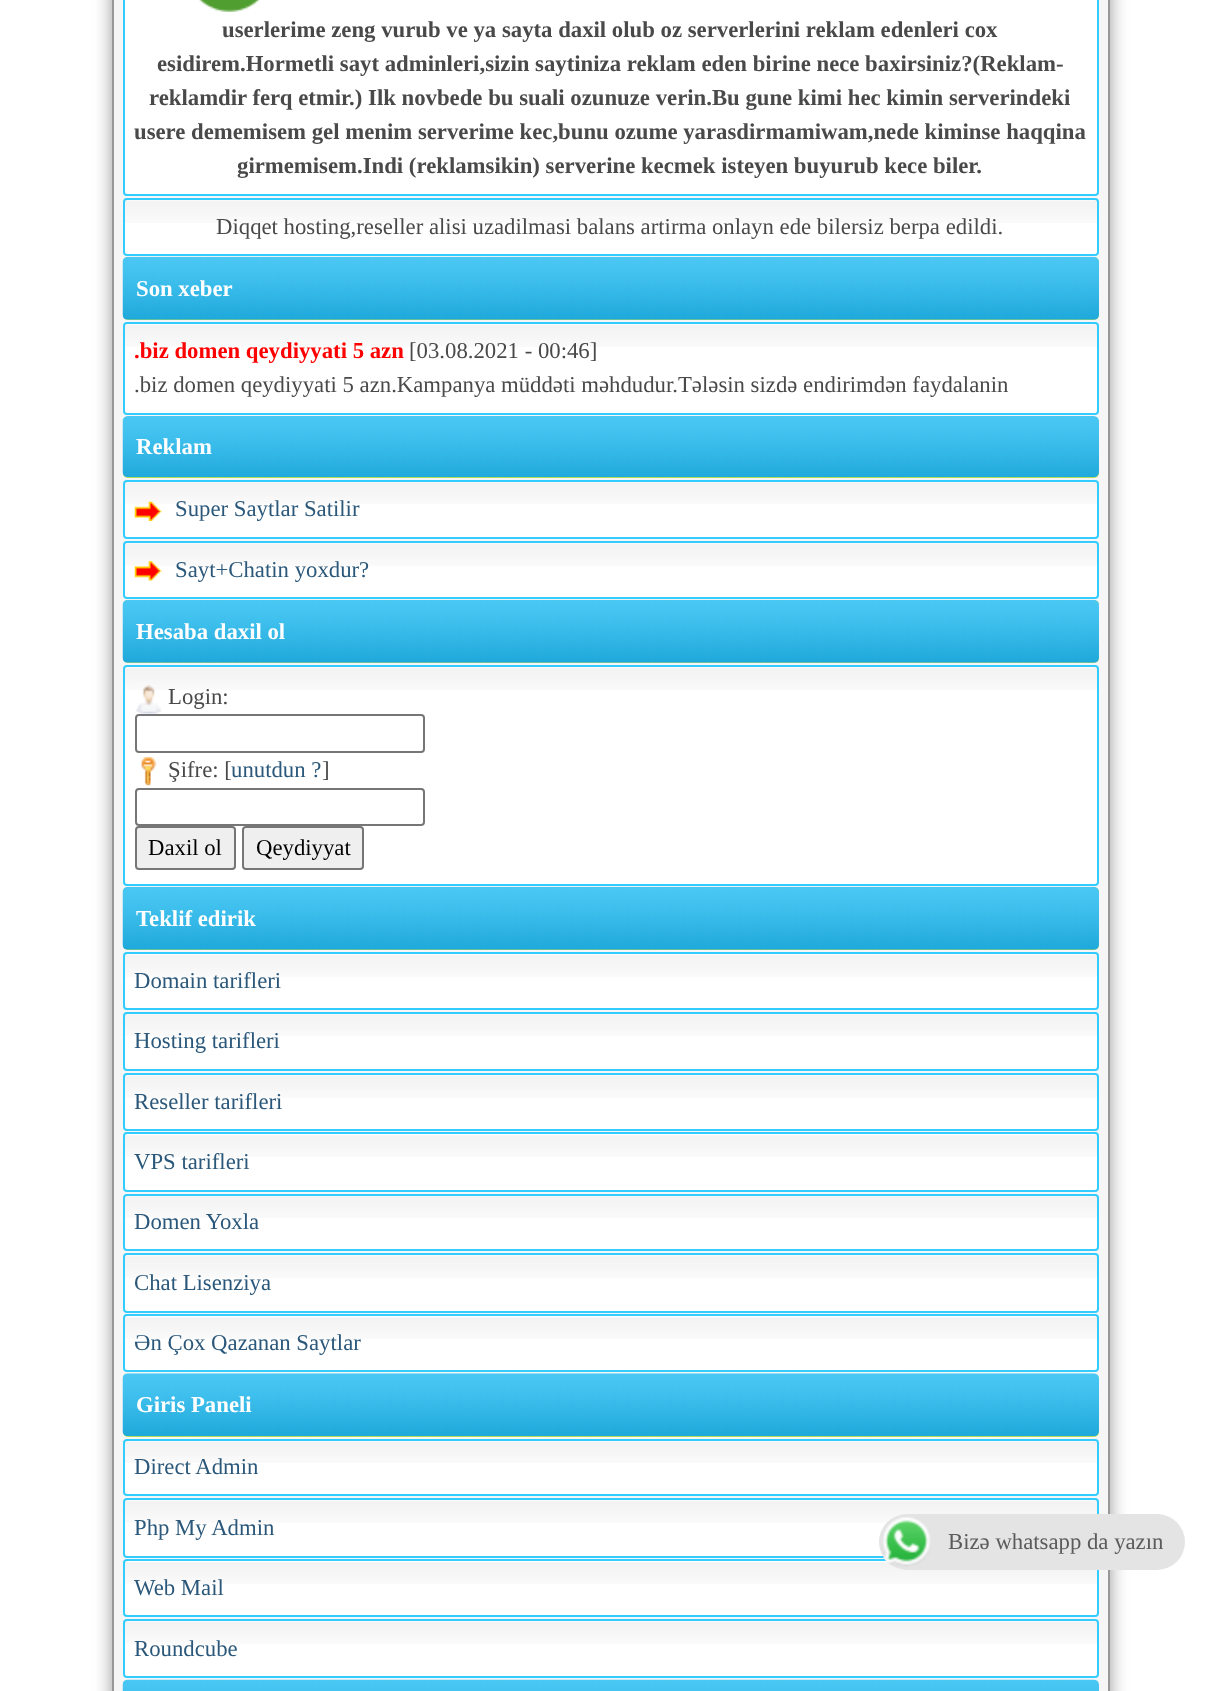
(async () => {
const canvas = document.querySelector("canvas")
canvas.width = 1219
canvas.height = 1691
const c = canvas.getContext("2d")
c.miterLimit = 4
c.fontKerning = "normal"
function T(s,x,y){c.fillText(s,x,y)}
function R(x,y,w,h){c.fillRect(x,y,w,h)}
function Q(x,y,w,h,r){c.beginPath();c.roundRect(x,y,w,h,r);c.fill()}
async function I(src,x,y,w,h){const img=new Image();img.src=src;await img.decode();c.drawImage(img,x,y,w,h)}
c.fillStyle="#fff"
R(0,0,1219,1691)
c.fillStyle="#989898"
c.filter="blur(9px)"
c.beginPath()
c.roundRect(112,-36,998,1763,9)
c.fill()
c.filter="none"
c.fillStyle="#f6f6f6"
c.beginPath()
c.rect(113,-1,996,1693)
c.fill()
c.strokeStyle="#989898"
c.lineWidth=2
c.stroke()
c.fillStyle="#fff"
c.beginPath()
c.roundRect(124,-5,974,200,3)
c.fill()
c.strokeStyle="#3cf"
c.stroke()
await I("1.png",199,0,61,12)
c.font="bold 22.75px Liberation Serif"
c.fillStyle="#494949"
T("userlerime zeng vurub ve ya sayta daxil olub oz serverlerini reklam edenleri cox",222,37)
T("esidirem.Hormetli sayt adminleri,sizin saytiniza reklam eden birine nece baxirsiniz?(Reklam-",157,71)
T("reklamdir ferq etmir.) Ilk novbede bu suali ozunuze verin.Bu gune kimi hec kimin serverindeki",149,105)
T("usere dememisem gel menim serverime kec,bunu ozume yarasdirmamiwam,nede kiminse haqqina",134,139)
T("girmemisem.Indi (reklamsikin) serverine kecmek isteyen buyurub kece biler.",237,173)
c.fillStyle="#fff"
Q(123,198,976,58,4)
await I("2.png",123,199,976,24)
c.beginPath()
c.roundRect(124,199,974,56,3)
c.stroke()
c.font="22.75px Liberation Serif"
c.fillStyle="#494949"
T("Diqqet hosting,reseller alisi uzadilmasi balans artirma onlayn ede bilersiz berpa edildi.",216,234)
c.fillStyle="#bfe04a"
Q(123,257,976,63,5)
await I("3.png",122,256,977,64)
c.font="bold 22.75px Liberation Serif"
c.fillStyle="#fff"
T("Son xeber",136,296)
Q(123,322,976,93,4)
await I("4.png",123,324,976,23)
c.beginPath()
c.roundRect(124,323,974,91,3)
c.stroke()
c.fillStyle="#f00"
T(".biz domen qeydiyyati 5 azn",134,358)
c.font="22.75px Liberation Serif"
c.fillStyle="#494949"
T("[03.08.2021 - 00:46]",409,358)
T(".biz domen qeydiyyati 5 azn.Kampanya müddəti məhdudur.Tələsin sizdə endirimdən faydalanin",134,392)
c.fillStyle="#bfe04a"
Q(123,417,976,61,5)
await I("5.png",122,416,977,62)
c.font="bold 22.75px Liberation Serif"
c.fillStyle="#fff"
T("Reklam",136,454)
Q(123,480,976,59,4)
await I("6.png",123,481,976,23)
c.beginPath()
c.roundRect(124,481,974,57,3)
c.stroke()
await I("7.png",134,501,28,20)
c.font="22.75px Liberation Serif"
c.fillStyle="#2b587a"
T("Super Saytlar Satilir",175,516)
c.fillStyle="#fff"
Q(123,541,976,58,4)
await I("2.png",123,542,976,24)
c.beginPath()
c.roundRect(124,542,974,56,3)
c.stroke()
await I("8.png",134,561,28,20)
c.fillStyle="#2b587a"
T("Sayt+Chatin yoxdur?",175,577)
c.fillStyle="#bfe04a"
Q(123,600,976,63,5)
await I("9.png",122,599,977,64)
c.font="bold 22.75px Liberation Serif"
c.fillStyle="#fff"
T("Hesaba daxil ol",136,639)
Q(123,665,976,221,4)
await I("10.png",123,667,976,23)
c.beginPath()
c.roundRect(124,666,974,219,3)
c.stroke()
await I("11.png",136,685,26,29)
c.font="22.75px Liberation Serif"
c.fillStyle="#494949"
T("Login:",168,704)
c.beginPath()
c.roundRect(136,715,288,37,3)
c.strokeStyle="#767676"
c.stroke()
await I("12.png",141,757,16,29)
T("Şifre: [",168,777)
c.fillStyle="#2b587a"
T("unutdun ?",231,777)
c.fillStyle="#494949"
T("]",322,777)
c.beginPath()
c.roundRect(136,789,288,36,3)
c.stroke()
c.fillStyle="#efefef"
c.beginPath()
c.roundRect(136,827,99,42,3)
c.fill()
c.stroke()
c.fillStyle="#000"
T("Daxil ol",148,855)
c.fillStyle="#efefef"
c.beginPath()
c.roundRect(243,827,120,42,3)
c.fill()
c.stroke()
c.fillStyle="#000"
T("Qeydiyyat",256,855)
c.fillStyle="#bfe04a"
Q(123,887,976,63,5)
await I("13.png",122,886,977,64)
c.font="bold 22.75px Liberation Serif"
c.fillStyle="#fff"
T("Teklif edirik",136,926)
Q(123,952,976,58,4)
await I("10.png",123,954,976,23)
c.beginPath()
c.roundRect(124,953,974,56,3)
c.strokeStyle="#3cf"
c.stroke()
c.font="22.75px Liberation Serif"
c.fillStyle="#2b587a"
T("Domain tarifleri",134,988)
c.fillStyle="#fff"
Q(123,1012,976,59,4)
await I("6.png",123,1013,976,23)
c.beginPath()
c.roundRect(124,1013,974,57,3)
c.stroke()
c.fillStyle="#2b587a"
T("Hosting tarifleri",134,1048)
c.fillStyle="#fff"
Q(123,1073,976,58,4)
await I("2.png",123,1074,976,24)
c.beginPath()
c.roundRect(124,1074,974,56,3)
c.stroke()
c.fillStyle="#2b587a"
T("Reseller tarifleri",134,1109)
c.fillStyle="#fff"
Q(123,1132,976,60,4)
await I("14.png",123,1135,976,22)
c.beginPath()
c.roundRect(124,1133,974,58,3)
c.stroke()
c.fillStyle="#2b587a"
T("VPS tarifleri",134,1169)
c.fillStyle="#fff"
Q(123,1194,976,57,4)
await I("6.png",123,1195,976,23)
c.beginPath()
c.roundRect(124,1195,974,55,3)
c.stroke()
c.fillStyle="#2b587a"
T("Domen Yoxla",134,1229)
c.fillStyle="#fff"
Q(123,1253,976,60,4)
await I("10.png",123,1255,976,23)
c.beginPath()
c.roundRect(124,1254,974,58,3)
c.stroke()
c.fillStyle="#2b587a"
T("Chat Lisenziya",134,1290)
c.fillStyle="#fff"
Q(123,1314,976,58,4)
await I("14.png",123,1317,976,22)
c.beginPath()
c.roundRect(124,1315,974,56,3)
c.stroke()
c.fillStyle="#2b587a"
T("Ən Çox Qazanan Saytlar",134,1350)
c.fillStyle="#bfe04a"
Q(123,1374,976,63,5)
await I("15.png",122,1373,977,64)
c.font="bold 22.75px Liberation Serif"
c.fillStyle="#fff"
T("Giris Paneli",136,1412)
Q(123,1439,976,57,4)
await I("6.png",123,1440,976,23)
c.beginPath()
c.roundRect(124,1440,974,55,3)
c.stroke()
c.font="22.75px Liberation Serif"
c.fillStyle="#2b587a"
T("Direct Admin",134,1474)
c.fillStyle="#fff"
Q(123,1498,976,60,4)
await I("10.png",123,1500,976,23)
c.beginPath()
c.roundRect(124,1499,974,58,3)
c.stroke()
c.fillStyle="#2b587a"
T("Php My Admin",134,1535)
c.fillStyle="#fff"
Q(123,1559,976,58,4)
await I("16.png",123,1562,974,22)
c.beginPath()
c.roundRect(124,1560,974,56,3)
c.stroke()
c.fillStyle="#2b587a"
T("Web Mail",134,1595)
c.fillStyle="#fff"
Q(123,1619,976,59,4)
await I("2.png",123,1620,976,24)
c.beginPath()
c.roundRect(124,1620,974,57,3)
c.stroke()
c.fillStyle="#2b587a"
T("Roundcube",134,1656)
await I("17.png",122,1679,977,12)
c.fillStyle="#e4e4e4"
Q(879,1514,306,56,28)
await I("18.png",882,1517,49,50)
c.fillStyle="#5b5b5b"
T("Bizə whatsapp da yazın",948,1549)
})()
